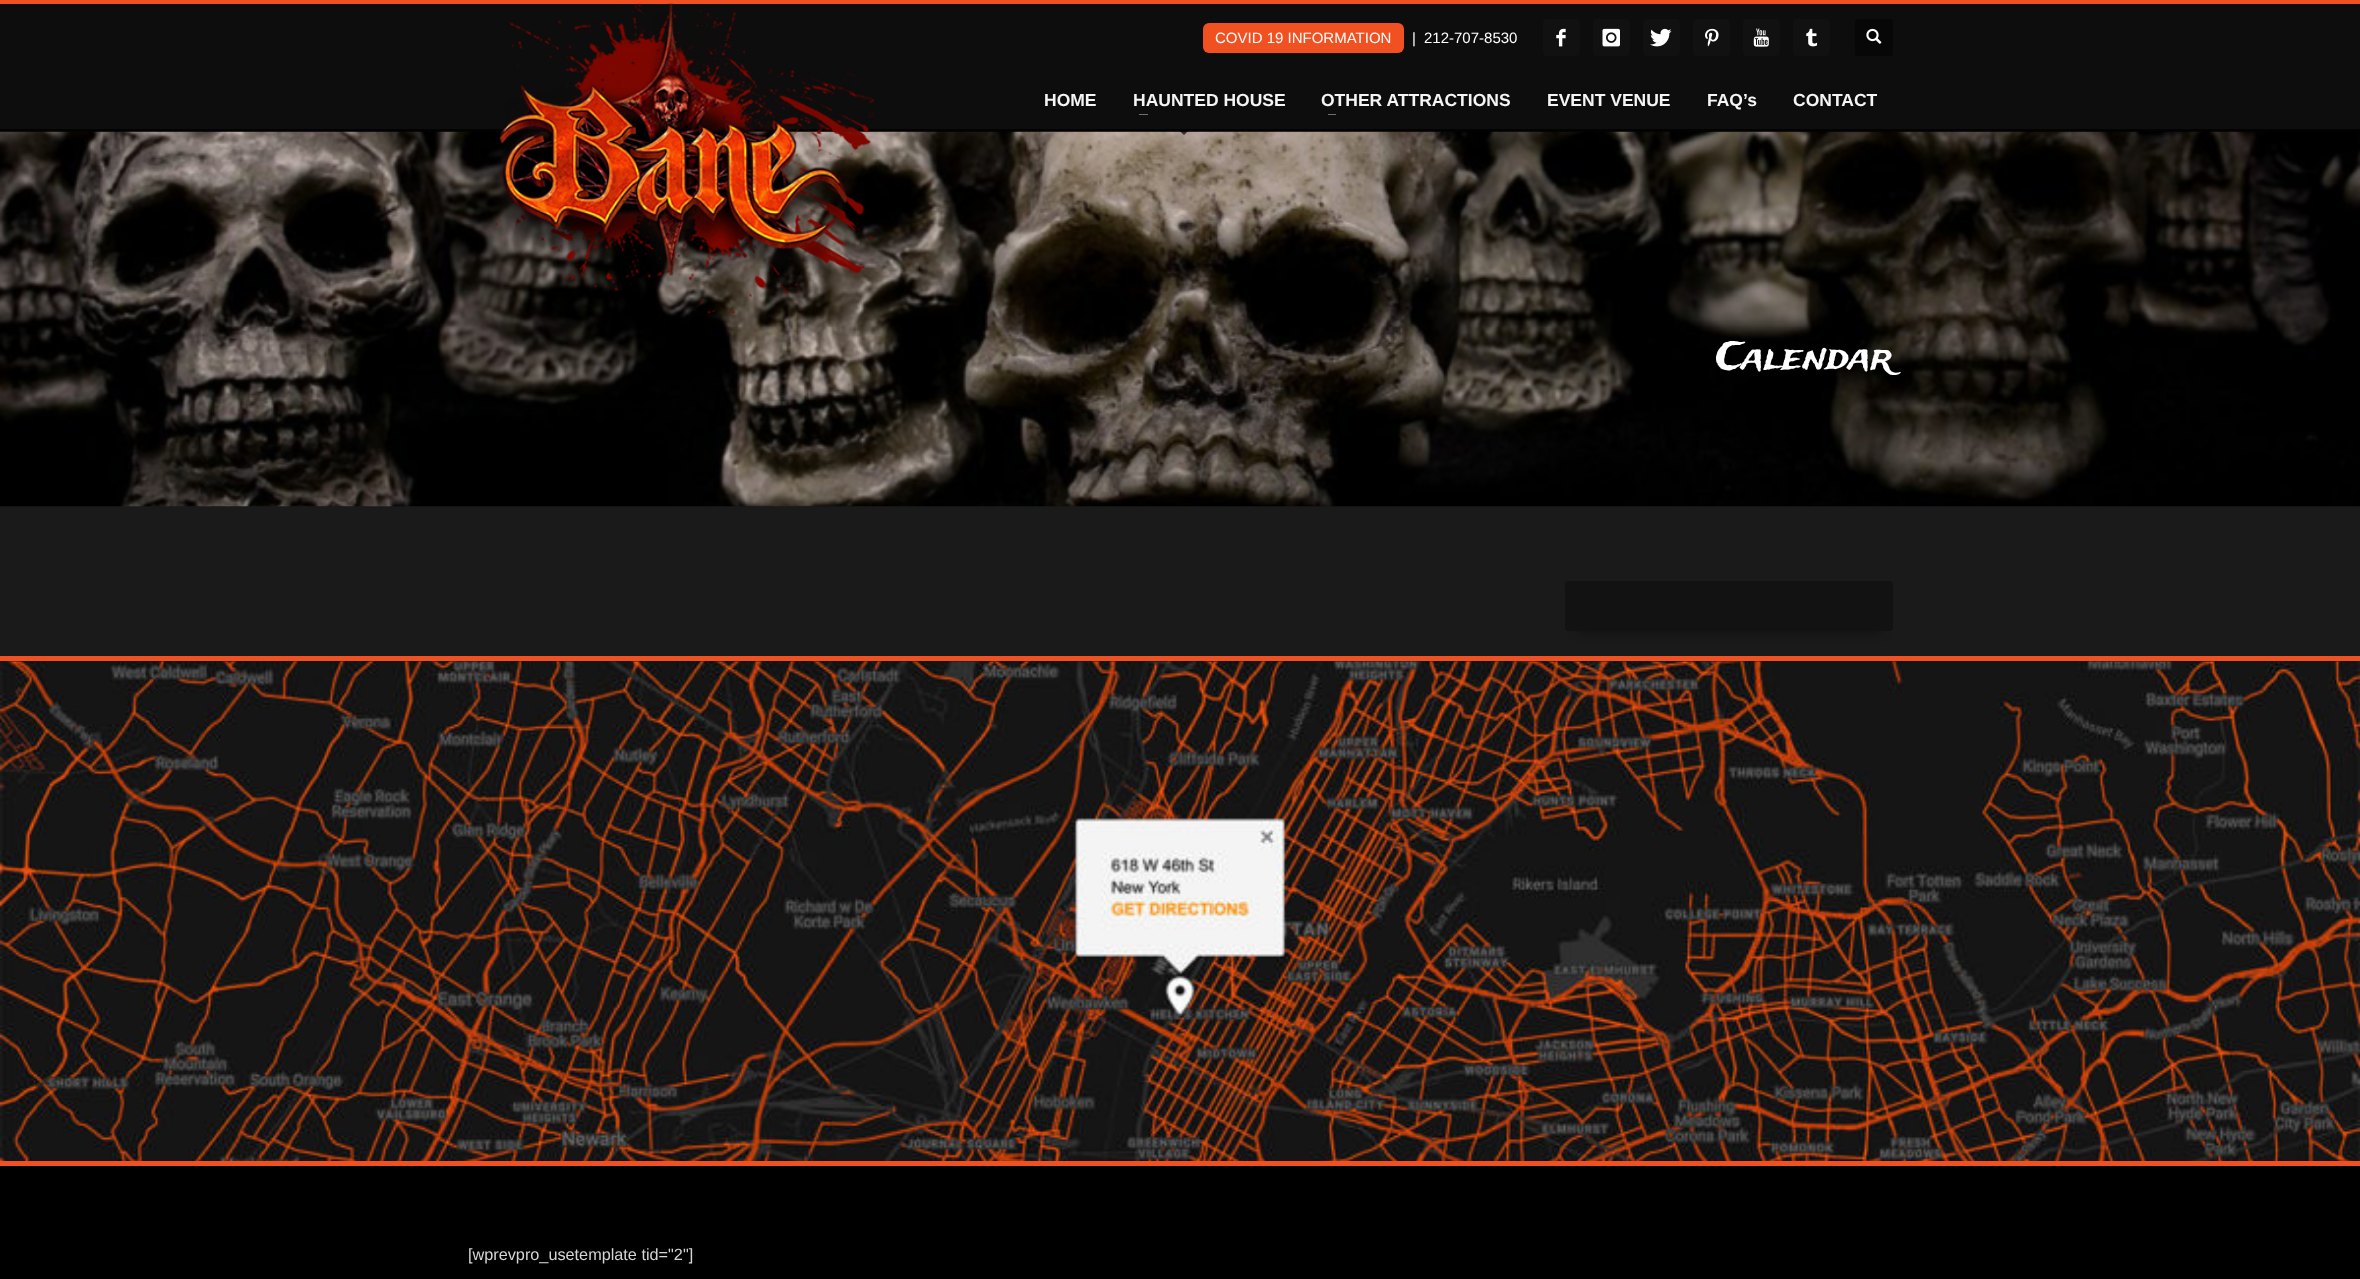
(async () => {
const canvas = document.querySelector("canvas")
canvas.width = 2360
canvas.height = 1279
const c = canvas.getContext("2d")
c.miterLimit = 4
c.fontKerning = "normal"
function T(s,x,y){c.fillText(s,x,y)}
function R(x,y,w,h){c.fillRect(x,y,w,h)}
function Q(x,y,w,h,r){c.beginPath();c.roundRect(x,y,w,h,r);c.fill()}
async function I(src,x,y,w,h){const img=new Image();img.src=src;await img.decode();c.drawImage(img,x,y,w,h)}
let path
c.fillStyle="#1a1a1a"
R(0,0,2360,1279)
c.fillStyle="#0d0d0d"
R(0,4,2360,127)
c.fillStyle="#f15021"
R(0,0,2360,4)
await I("9.png",0,131,2360,376)
c.fillStyle="#000000b3"
R(0,129,2360,3)
await I("1.png",492,3,382,311)
c.fillStyle="#f15020"
Q(1203,23,201,30,6)
c.font="15px Liberation Sans"
c.fillStyle="#fff"
T("COVID 19 INFORMATION",1215,43)
T("|",1412,43)
T("212-707-8530",1424,43)
c.fillStyle="#111"
Q(1543,19,37,37,4)
await I("2.png",1556,28,10,19)
Q(1593,19,37,37,4)
await I("3.png",1602,28,18,19)
Q(1643,19,37,37,4)
await I("4.png",1650,28,22,19)
Q(1693,19,37,37,4)
await I("5.png",1705,28,14,19)
Q(1743,19,37,37,4)
await I("6.png",1753,28,16,19)
Q(1793,19,37,37,4)
await I("7.png",1806,28,12,19)
c.fillStyle="#070707"
Q(1855,19,38,37,2.5)
await I("8.png",1866,28,16,16)
c.font="bold 17.5px Liberation Sans"
c.fillStyle="#f5f5f5"
T("HOME",1044,106)
T("HAUNTED HOUSE",1133,106)
c.fillStyle="#6e6e6e"
R(1139,114,9,1)
c.fillStyle="#f5f5f5"
T("OTHER ATTRACTIONS",1321,106)
c.fillStyle="#6e6e6e"
R(1328,114,8,1)
c.fillStyle="#f5f5f5"
T("EVENT VENUE",1547,106)
T("FAQ’s",1707,106)
T("CONTACT",1793,106)
c.fillStyle="#000000b3"
path = new Path2D("M1177.5 129h12.5l-6 6z")
c.fill(path)
c.font="37.5px Trade Winds"
c.fillStyle="#fff"
T("Calendar",1716,369)
c.fillStyle="#00000073"
c.filter="blur(6px)"
c.beginPath()
c.rect(1578,606,302,25)
c.fill()
c.filter="none"
c.fillStyle="#121212"
Q(1565,581,328,50,4)
c.fillStyle="#f15021"
R(0,656,2360,5)
await I("10.png",0,661,2360,500)
c.fillStyle="#000"
R(0,1166,2360,113)
c.fillStyle="#f15021"
R(0,1161,2360,5)
c.font="16.25px Liberation Sans"
c.fillStyle="#d5d5d5"
T("[wprevpro_usetemplate tid=\"2\"]",468,1260)
})()
